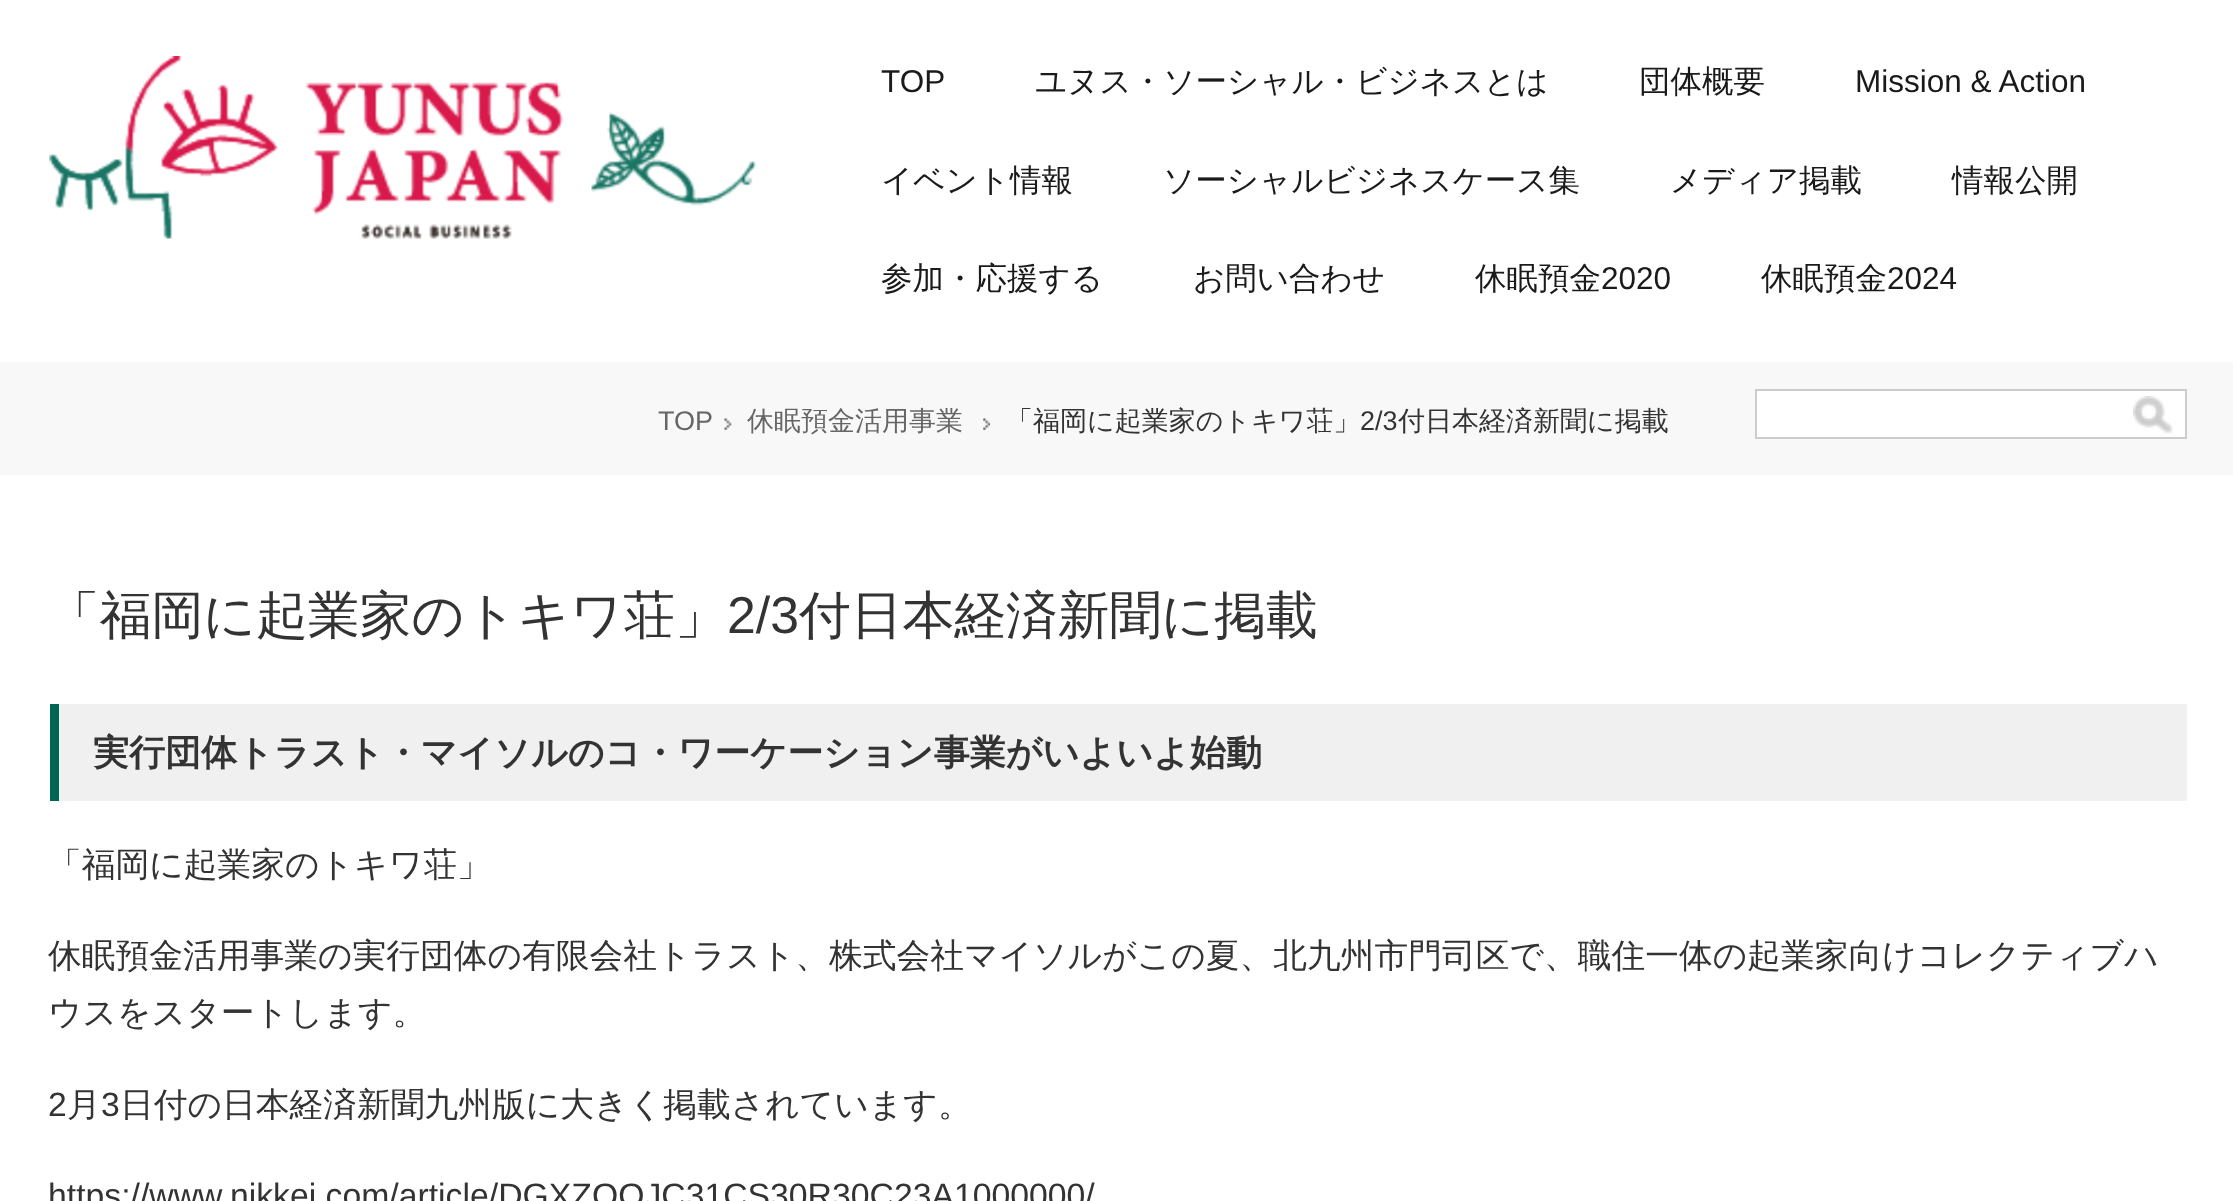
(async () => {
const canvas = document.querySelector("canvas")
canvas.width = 2233
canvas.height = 1201
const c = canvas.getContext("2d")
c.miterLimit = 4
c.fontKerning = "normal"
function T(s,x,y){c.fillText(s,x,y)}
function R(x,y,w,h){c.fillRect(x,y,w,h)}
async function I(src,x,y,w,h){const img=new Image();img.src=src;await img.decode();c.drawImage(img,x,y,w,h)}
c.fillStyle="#fff"
R(0,0,2233,1201)
await I("1.png",49,56,707,183)
c.font="31.5px Liberation Sans"
c.fillStyle="#1a1a1a"
T("TOP",881,92)
c.font="500 31.5px WenQuanYi Zen Hei"
T("ユヌス・ソーシャル・ビジネスとは",1035,92)
T("団体概要",1639,92)
c.font="31.5px Liberation Sans"
T("Mission & Action",1855,92)
c.font="500 31.5px WenQuanYi Zen Hei"
T("イベント情報",881,191)
T("ソーシャルビジネスケース集",1163,191)
T("メディア掲載",1670,191)
T("情報公開",1952,191)
T("参加・応援する",881,289)
T("お問い合わせ",1193,289)
T("休眠預金",1475,289)
c.font="31.5px Liberation Sans"
T("2020",1601,289)
c.font="500 31.5px WenQuanYi Zen Hei"
T("休眠預金",1761,289)
c.font="31.5px Liberation Sans"
T("2024",1887,289)
c.fillStyle="#f8f8f8"
R(0,362,2233,113)
c.font="27px Liberation Sans"
c.fillStyle="#666"
T("TOP",658,430)
await I("2.png",724,418,8,12)
c.font="500 27px WenQuanYi Zen Hei"
T("休眠預金活用事業",747,430)
await I("3.png",983,418,7,12)
c.fillStyle="#333"
T("「福岡に起業家のトキワ荘」",1006,430)
c.font="27px Liberation Sans"
T("2/3",1360,430)
c.font="500 27px WenQuanYi Zen Hei"
T("付日本経済新聞に掲載",1398,430)
c.fillStyle="#fff"
c.beginPath()
c.rect(1756,390,430,48)
c.fill()
c.strokeStyle="#ccc"
c.lineWidth=2
c.stroke()
await I("4.png",2133,396,40,38)
c.font="500 51.75px WenQuanYi Zen Hei"
c.fillStyle="#333"
T("「福岡に起業家のトキワ荘」",48,633)
c.font="51.75px Liberation Sans"
T("2/3",727,633)
c.font="500 51.75px WenQuanYi Zen Hei"
T("付日本経済新聞に掲載",799,633)
c.fillStyle="#f0f0f0"
R(59,704,2128,97)
c.fillStyle="#006654"
R(50,704,9,97)
c.font="bold 36px WenQuanYi Zen Hei"
c.fillStyle="#333"
T("実行団体トラスト・マイソルのコ・ワーケーション事業がいよいよ始動",93,765)
c.font="500 33.75px WenQuanYi Zen Hei"
T("「福岡に起業家のトキワ荘」",48,876)
T("休眠預金活用事業の実行団体の有限会社トラスト、株式会社マイソルがこの夏、北九州市門司区で、職住一体の起業家向けコレクティブハ",48,967)
T("ウスをスタートします。",48,1024)
c.font="33.75px Liberation Sans"
T("2",48,1116)
c.font="500 33.75px WenQuanYi Zen Hei"
T("月",67,1116)
c.font="33.75px Liberation Sans"
T("3",101,1116)
c.font="500 33.75px WenQuanYi Zen Hei"
T("日付の日本経済新聞九州版に大きく掲載されています。",120,1116)
c.font="33.75px Liberation Sans"
T("https://www.nikkei.com/article/DGXZQOJC31CS30R30C23A1000000/",48,1207)
})()
